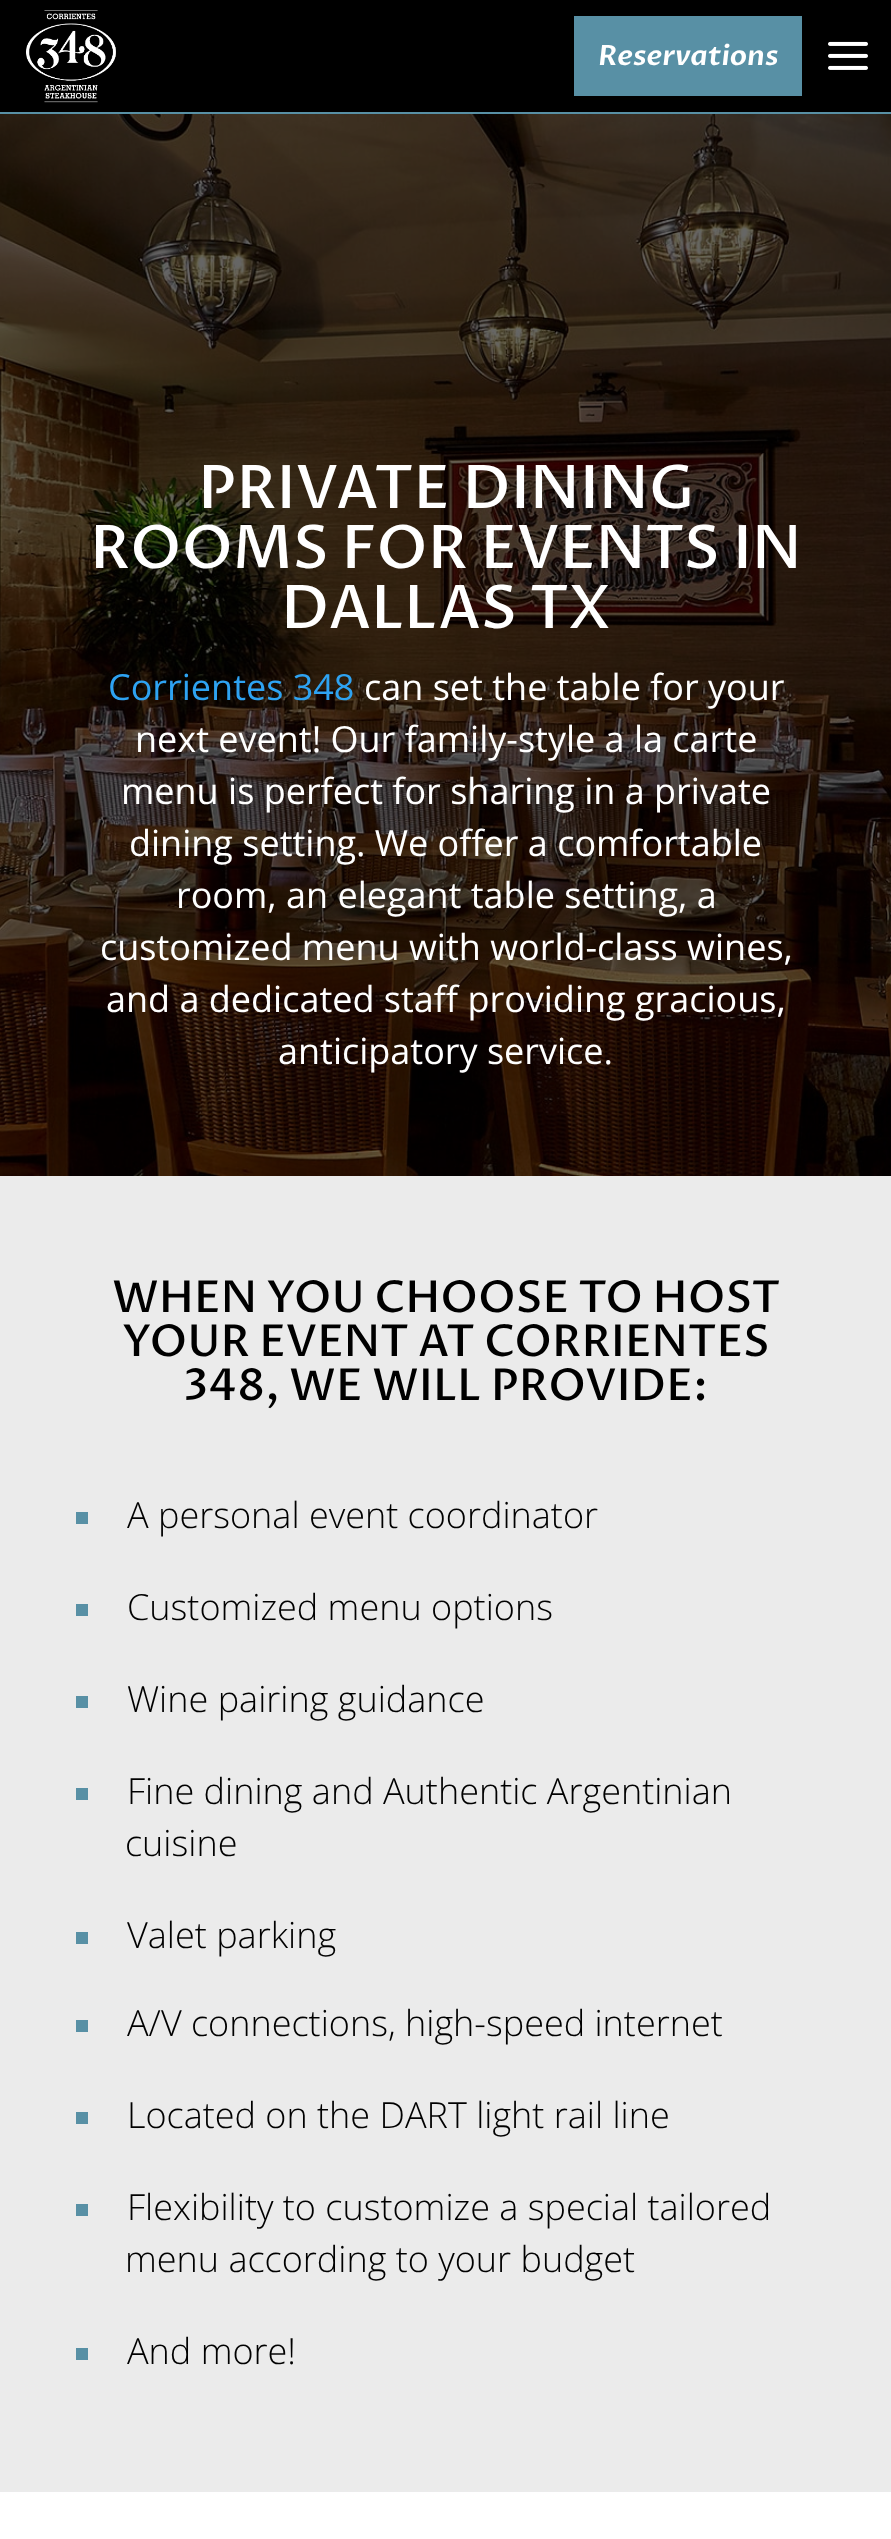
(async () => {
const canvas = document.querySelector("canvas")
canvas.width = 891
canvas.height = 2539
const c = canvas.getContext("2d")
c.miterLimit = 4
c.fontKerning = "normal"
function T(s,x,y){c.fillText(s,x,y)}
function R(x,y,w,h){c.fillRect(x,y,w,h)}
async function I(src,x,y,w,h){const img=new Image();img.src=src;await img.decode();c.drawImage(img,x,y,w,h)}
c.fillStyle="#fff"
R(0,0,891,2539)
c.fillStyle="#000"
R(0,0,891,112)
c.fillStyle="#5890a5"
R(0,112,891,2)
await I("1.png",26,10,90,93)
await I("2.png",828,41,40,29)
R(574,16,228,80)
c.font="italic 600 28px Proza Libre"
c.fillStyle="#fff"
T("Reservations",598,65)
await I("3.png",0,114,891,1062)
c.font="500 60px Proza Libre"
T("PRIVATE DINING",198,508)
T("ROOMS FOR EVENTS IN",90,568)
T("DALLAS TX",281,628)
c.font="36px Open Sans"
c.fillStyle="#2ea3f2"
T("Corrientes 348",108,700)
c.fillStyle="#fff"
T("can set the table for your",364,700)
T("next event! Our family-style a la carte",135,752)
T("menu is perfect for sharing in a private",121,804)
T("dining setting. We offer a comfortable",129,856)
T("room, an elegant table setting, a",176,908)
T("customized menu with world-class wines,",100,960)
T("and a dedicated staff providing gracious,",106,1012)
T("anticipatory service.",278,1064)
c.fillStyle="#ebebeb"
R(0,1176,891,1316)
c.font="500 44px Proza Libre"
c.fillStyle="#000"
T("WHEN YOU CHOOSE TO HOST",112,1312)
T("YOUR EVENT AT CORRIENTES",122,1356)
T("348, WE WILL PROVIDE:",183,1400)
c.fillStyle="#5890a5"
R(76,1512,12,12)
c.font="300 36px Open Sans"
c.fillStyle="#000"
T("A personal event coordinator",127,1528)
c.fillStyle="#5890a5"
R(76,1604,12,12)
c.fillStyle="#000"
T("Customized menu options",127,1620)
c.fillStyle="#5890a5"
R(76,1696,12,12)
c.fillStyle="#000"
T("Wine pairing guidance",127,1712)
c.fillStyle="#5890a5"
R(76,1788,12,12)
c.fillStyle="#000"
T("Fine dining and Authentic Argentinian",127,1804)
T("cuisine",125,1856)
c.fillStyle="#5890a5"
R(76,1932,12,12)
c.fillStyle="#000"
T("Valet parking",127,1948)
c.fillStyle="#5890a5"
R(76,2020,12,12)
c.fillStyle="#000"
T("A/V connections, high-speed internet",127,2036)
c.fillStyle="#5890a5"
R(76,2112,12,12)
c.fillStyle="#000"
T("Located on the DART light rail line",127,2128)
c.fillStyle="#5890a5"
R(76,2204,12,12)
c.fillStyle="#000"
T("Flexibility to customize a special tailored",127,2220)
T("menu according to your budget",125,2272)
c.fillStyle="#5890a5"
R(76,2348,12,12)
c.fillStyle="#000"
T("And more!",127,2364)
})()
